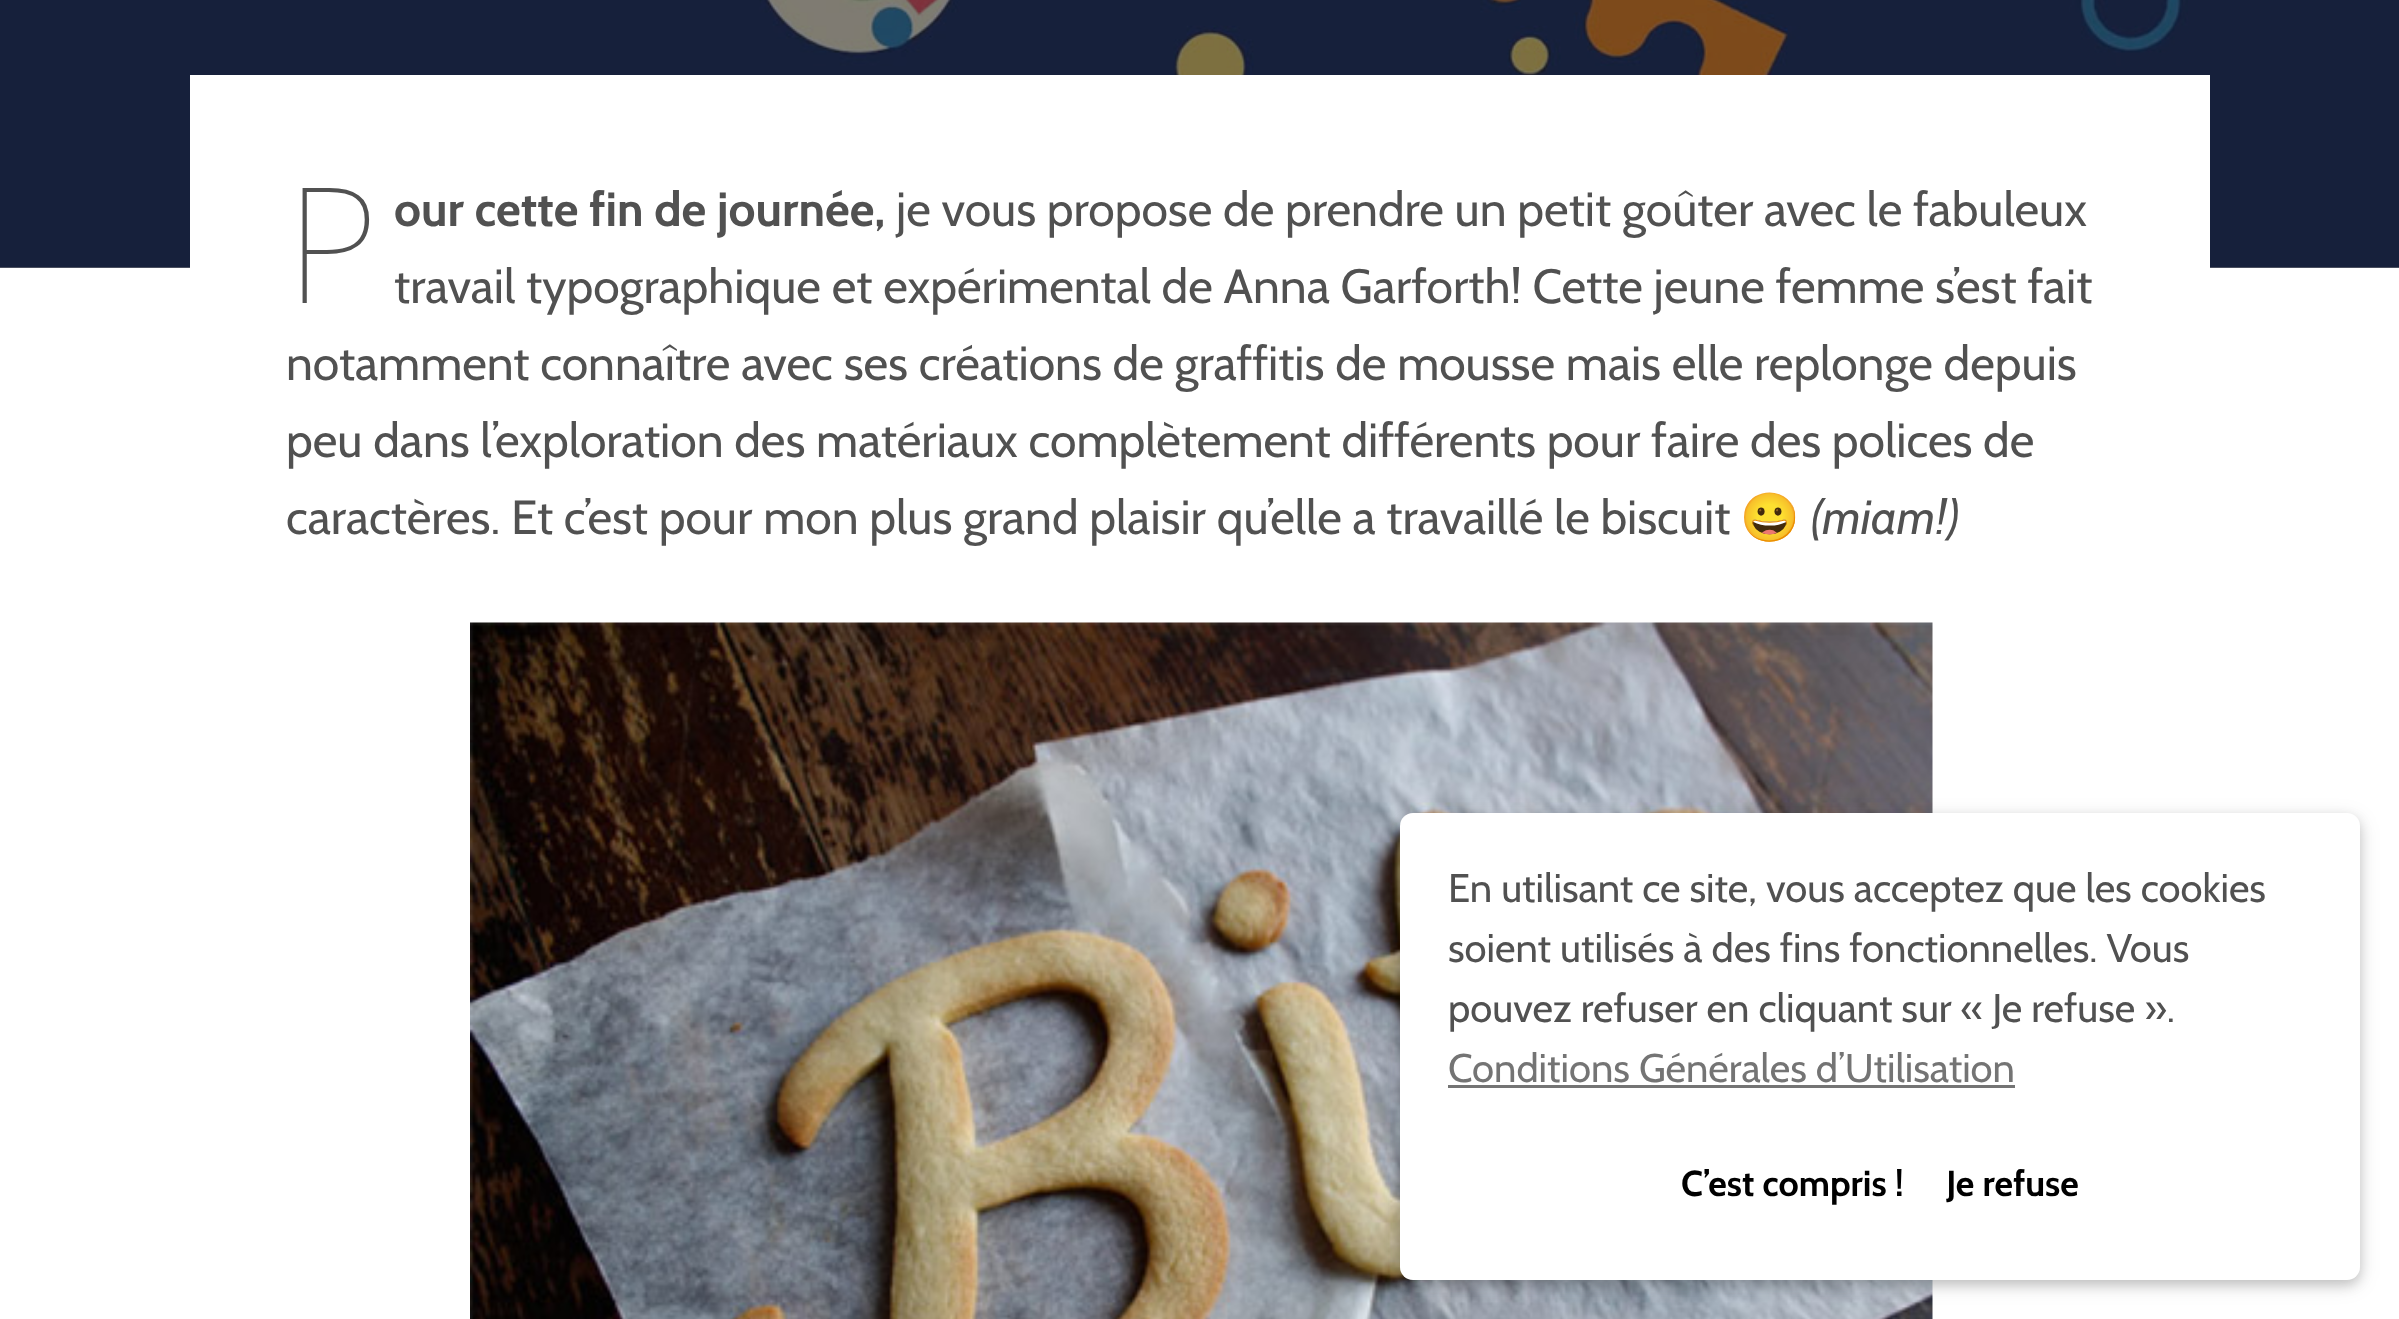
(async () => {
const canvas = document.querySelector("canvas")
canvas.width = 2399
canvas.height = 1319
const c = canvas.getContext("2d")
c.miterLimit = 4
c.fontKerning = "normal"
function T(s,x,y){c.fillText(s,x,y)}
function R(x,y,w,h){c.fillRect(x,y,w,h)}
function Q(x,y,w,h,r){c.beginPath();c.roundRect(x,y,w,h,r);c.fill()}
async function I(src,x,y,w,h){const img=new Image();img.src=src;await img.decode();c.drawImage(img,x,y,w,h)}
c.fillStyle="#fff"
R(0,0,2399,1319)
c.fillStyle="#7f7f83"
R(0,267,2399,1)
await I("1.png",0,0,2399,268)
c.fillStyle="#fff"
R(190,75,2020,193)
c.font="100 161px Noto Sans"
c.fillStyle="#515151"
T("P",286,303)
c.font="bold 48px Cabin"
T("our cette fin de journée,",394,226)
c.font="48px Cabin"
T("je vous propose de prendre un petit goûter avec le fabuleux",896,226)
T("travail typographique et expérimental de Anna Garforth! Cette jeune femme s’est fait",394,303)
T("notamment connaître avec ses créations de graffitis de mousse mais elle replonge depuis",286,380)
T("peu dans l’exploration des matériaux complètement différents pour faire des polices de",286,457)
T("caractères. Et c’est pour mon plus grand plaisir qu’elle a travaillé le biscuit",286,534)
c.font="48px Noto Color Emoji"
T("😀",1740,534)
c.font="italic 48px Cabin"
T("(miam!)",1811,534)
await I("2.png",470,622,1463,697)
c.fillStyle="#0000001f"
c.filter="blur(10px)"
c.beginPath()
c.roundRect(1400,818,960,467,13)
c.fill()
c.filter="none"
c.fillStyle="#00000029"
c.filter="blur(6px)"
c.beginPath()
c.roundRect(1400,818,960,467,13)
c.fill()
c.filter="none"
c.fillStyle="#fff"
Q(1400,813,960,467,13)
c.font="40px Cabin"
c.fillStyle="#515151"
T("En utilisant ce site, vous acceptez que les cookies",1448,902)
T("soient utilisés à des fins fonctionnelles. Vous",1448,962)
T("pouvez refuser en cliquant sur « Je refuse ».",1448,1022)
c.fillStyle="#747474"
T("Conditions Générales d’Utilisation",1448,1082)
R(1448,1085,567,3)
c.font="bold 36px Cabin"
c.fillStyle="#000"
T("C’est compris !  Je refuse",1681,1196)
})()
